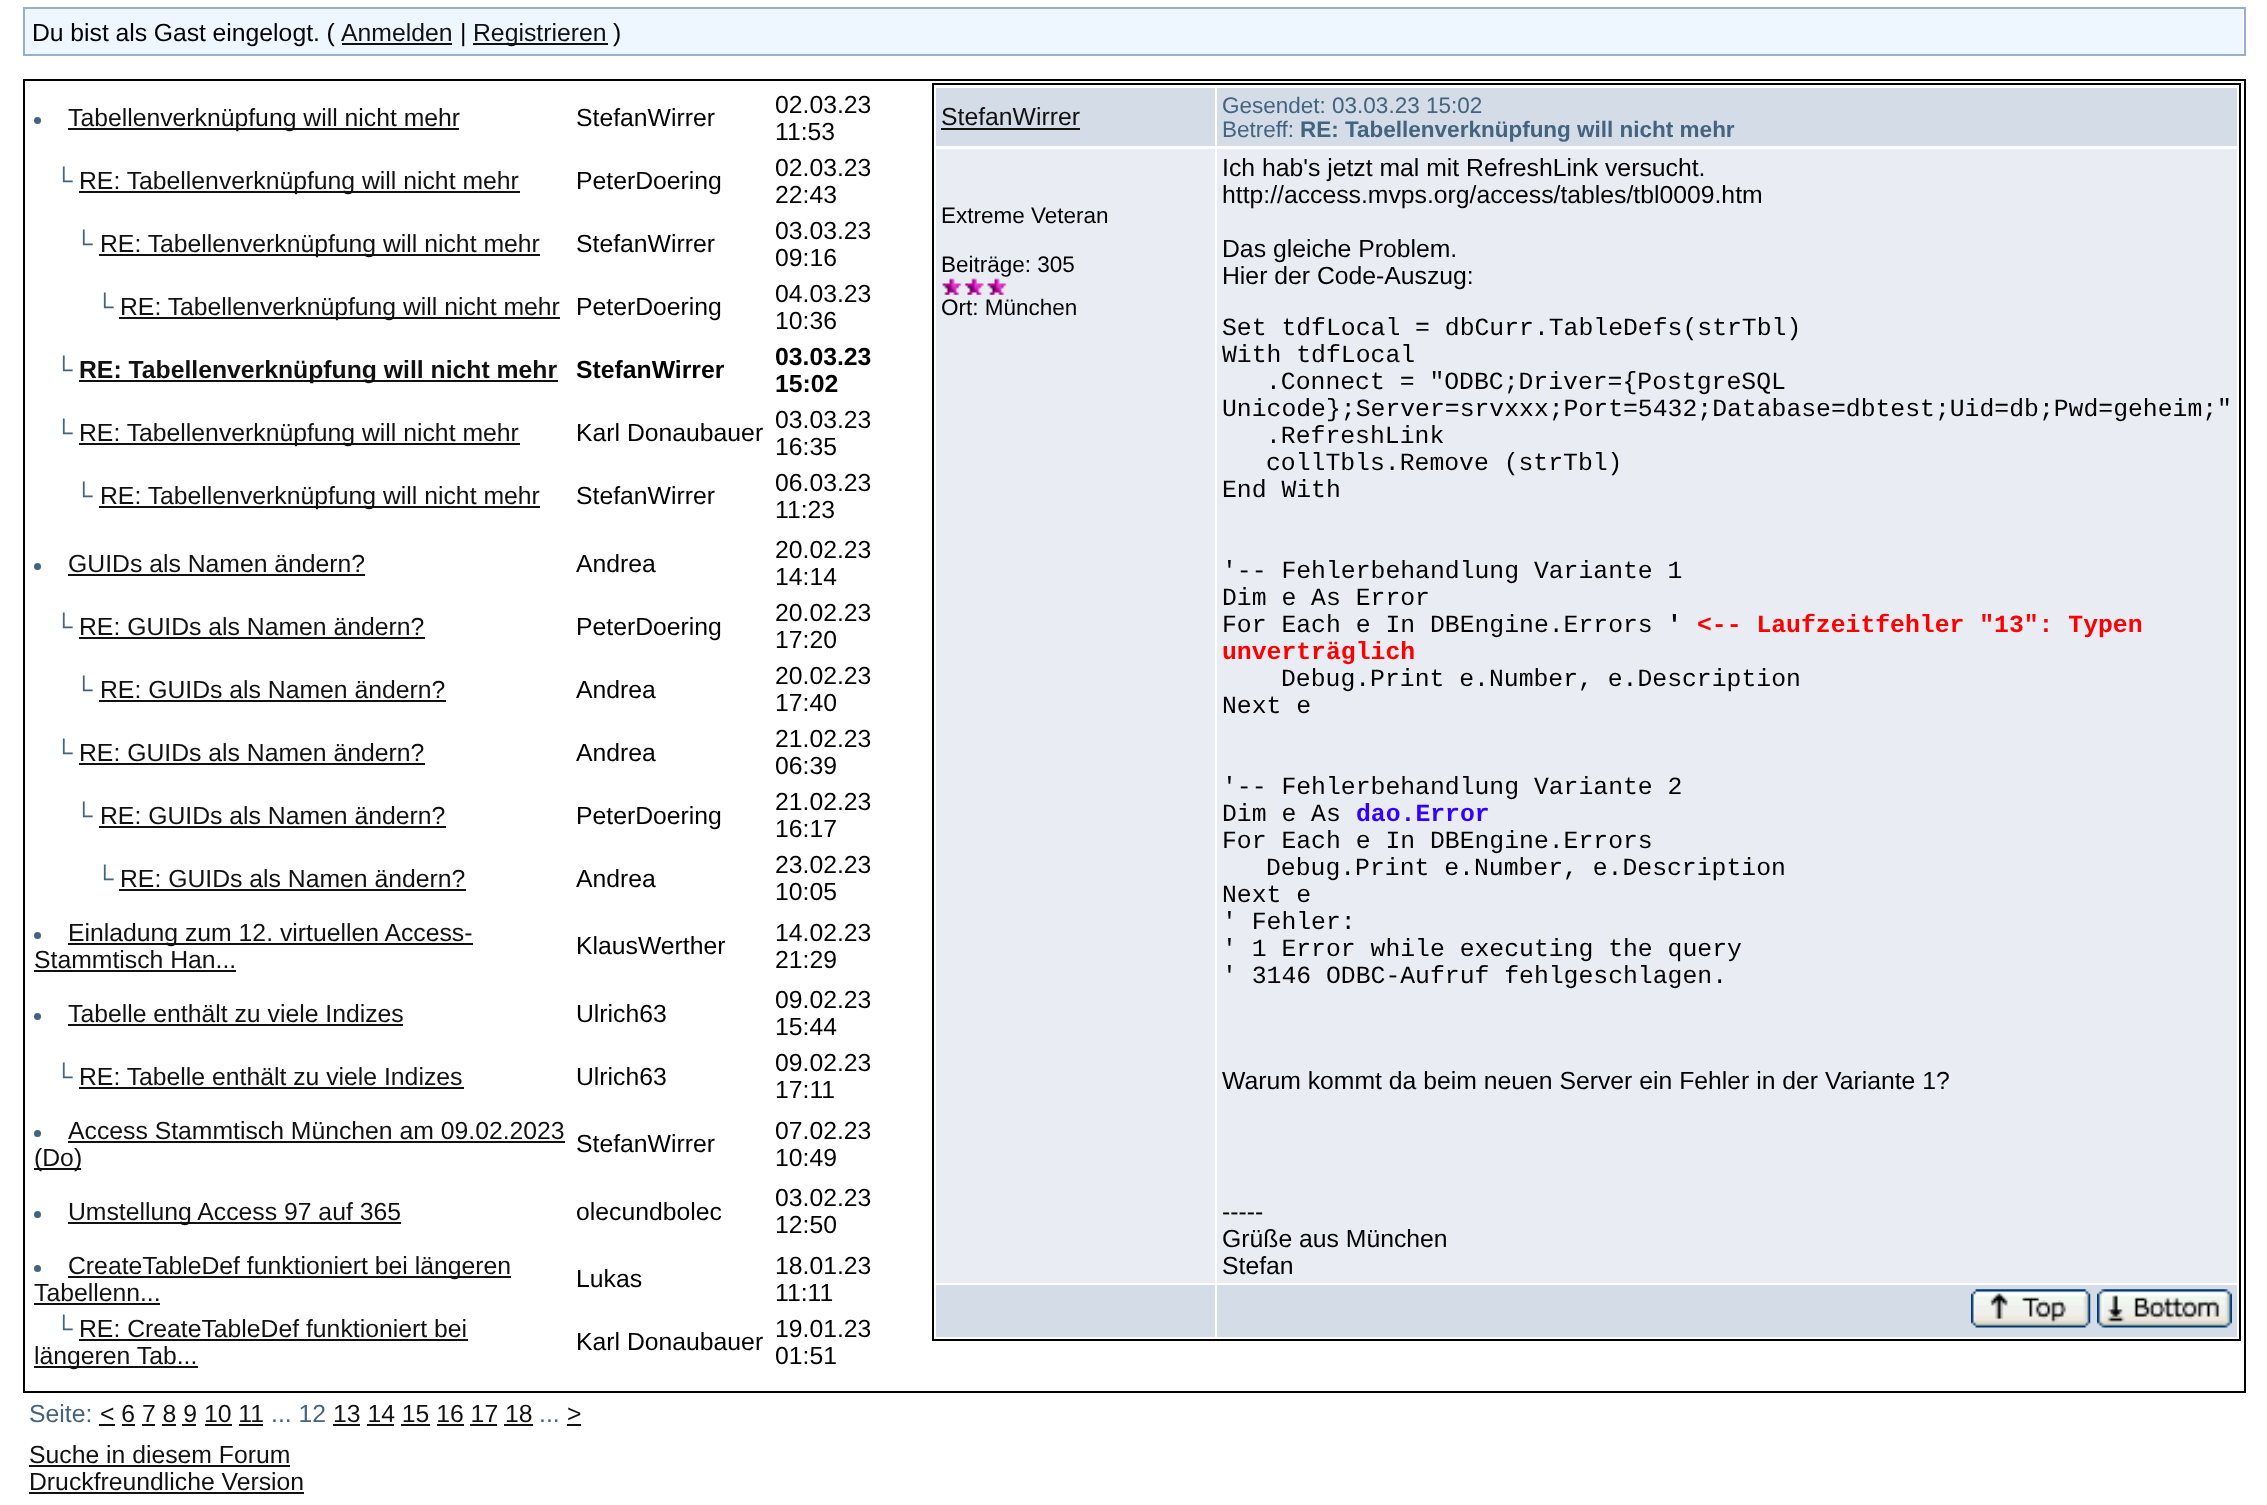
(async () => {
const canvas = document.querySelector("canvas")
canvas.width = 2267
canvas.height = 1505
const c = canvas.getContext("2d")
c.miterLimit = 4
c.fontKerning = "normal"
function T(s,x,y){c.fillText(s,x,y)}
function R(x,y,w,h){c.fillRect(x,y,w,h)}
async function I(src,x,y,w,h){const img=new Image();img.src=src;await img.decode();c.drawImage(img,x,y,w,h)}
c.fillStyle="#fff"
R(0,0,2267,1505)
c.strokeStyle="#96afcd"
c.lineWidth=2
c.strokeRect(24,8,2221,47)
c.fillStyle="#eef6ff"
R(25,9,2218,45)
c.wordSpacing="-0.25px"
c.font="24.75px Liberation Sans"
c.fillStyle="#000"
T("Du bist als Gast eingelogt. (",32,41)
c.wordSpacing="0px"
c.fillStyle="#111"
T("Anmelden",341,41)
R(342,43,110,2)
c.fillStyle="#000"
T("|",460,41)
c.fillStyle="#111"
R(473,43,135,2)
T("Registrieren",473,41)
c.fillStyle="#000"
T(")",613,41)
c.strokeStyle="#000"
c.strokeRect(24,80,2221,1312)
c.fillStyle="#43647e"
c.beginPath()
c.arc(37.5,120.5,3.5,0,7)
c.fill()
c.fillStyle="#111"
R(68,128,391,2)
T("Tabellenverknüpfung will nicht mehr",68,126)
c.fillStyle="#000"
T("StefanWirrer",576,126)
T("02.03.23",775,113)
T("11:53",775,140)
c.fillStyle="#43647e"
T("└",55,189)
c.fillStyle="#111"
R(79,191,441,2)
T("RE: Tabellenverknüpfung will nicht mehr",79,189)
c.fillStyle="#000"
T("PeterDoering",576,189)
T("02.03.23",775,176)
T("22:43",775,203)
c.fillStyle="#43647e"
T("└",75,252)
c.fillStyle="#111"
R(99,254,441,2)
T("RE: Tabellenverknüpfung will nicht mehr",100,252)
c.fillStyle="#000"
T("StefanWirrer",576,252)
T("03.03.23",775,239)
T("09:16",775,266)
c.fillStyle="#43647e"
T("└",96,315)
c.fillStyle="#111"
R(119,317,441,2)
T("RE: Tabellenverknüpfung will nicht mehr",120,315)
c.fillStyle="#000"
T("PeterDoering",576,315)
T("04.03.23",775,302)
T("10:36",775,329)
c.fillStyle="#43647e"
T("└",55,378)
c.fillStyle="#111"
R(79,380,479,2)
c.font="bold 24.75px Liberation Sans"
T("RE: Tabellenverknüpfung will nicht mehr",79,378)
c.fillStyle="#000"
T("StefanWirrer",576,378)
T("03.03.23",775,365)
T("15:02",775,392)
c.font="24.75px Liberation Sans"
c.fillStyle="#43647e"
T("└",55,441)
c.fillStyle="#111"
R(79,443,441,2)
T("RE: Tabellenverknüpfung will nicht mehr",79,441)
c.fillStyle="#000"
T("Karl Donaubauer",576,441)
T("03.03.23",775,428)
T("16:35",775,455)
c.fillStyle="#43647e"
T("└",75,504)
c.fillStyle="#111"
R(99,506,441,2)
T("RE: Tabellenverknüpfung will nicht mehr",100,504)
c.fillStyle="#000"
T("StefanWirrer",576,504)
T("06.03.23",775,491)
T("11:23",775,518)
c.fillStyle="#43647e"
c.beginPath()
c.arc(37.5,566.5,3.5,0,7)
c.fill()
c.fillStyle="#111"
T("GUIDs als Namen ändern?",68,572)
R(68,574,297,2)
c.fillStyle="#000"
T("Andrea",576,572)
T("20.02.23",775,558)
T("14:14",775,585)
c.fillStyle="#43647e"
T("└",55,635)
c.fillStyle="#111"
T("RE: GUIDs als Namen ändern?",79,635)
R(79,637,346,2)
c.fillStyle="#000"
T("PeterDoering",576,635)
T("20.02.23",775,621)
T("17:20",775,648)
c.fillStyle="#43647e"
T("└",75,698)
c.fillStyle="#111"
T("RE: GUIDs als Namen ändern?",100,698)
R(99,700,347,2)
c.fillStyle="#000"
T("Andrea",576,698)
T("20.02.23",775,684)
T("17:40",775,711)
c.fillStyle="#43647e"
T("└",55,761)
c.fillStyle="#111"
T("RE: GUIDs als Namen ändern?",79,761)
R(79,763,346,2)
c.fillStyle="#000"
T("Andrea",576,761)
T("21.02.23",775,747)
T("06:39",775,774)
c.fillStyle="#43647e"
T("└",75,824)
c.fillStyle="#111"
T("RE: GUIDs als Namen ändern?",100,824)
R(99,826,347,2)
c.fillStyle="#000"
T("PeterDoering",576,824)
T("21.02.23",775,810)
T("16:17",775,837)
c.fillStyle="#43647e"
T("└",96,887)
c.fillStyle="#111"
T("RE: GUIDs als Namen ändern?",120,887)
R(119,889,347,2)
c.fillStyle="#000"
T("Andrea",576,887)
T("23.02.23",775,873)
T("10:05",775,900)
c.fillStyle="#43647e"
c.beginPath()
c.arc(37.5,935.5,3.5,0,7)
c.fill()
c.fillStyle="#111"
R(68,943,405,2)
T("Einladung zum 12. virtuellen Access-",68,941)
T("Stammtisch Han...",34,968)
R(34,970,202,2)
c.fillStyle="#000"
T("KlausWerther",576,954)
T("14.02.23",775,941)
T("21:29",775,968)
c.fillStyle="#43647e"
c.beginPath()
c.arc(37.5,1016.5,3.5,0,7)
c.fill()
c.fillStyle="#111"
T("Tabelle enthält zu viele Indizes",68,1022)
R(68,1024,335,2)
c.fillStyle="#000"
T("Ulrich63",576,1022)
T("09.02.23",775,1008)
T("15:44",775,1035)
c.fillStyle="#43647e"
T("└",55,1085)
c.fillStyle="#111"
T("RE: Tabelle enthält zu viele Indizes",79,1085)
R(79,1087,385,2)
c.fillStyle="#000"
T("Ulrich63",576,1085)
T("09.02.23",775,1071)
T("17:11",775,1098)
c.fillStyle="#43647e"
c.beginPath()
c.arc(37.5,1133.5,3.5,0,7)
c.fill()
c.fillStyle="#111"
T("Access Stammtisch München am 09.02.2023",68,1139)
R(68,1141,497,2)
R(34,1168,47,2)
T("(Do)",34,1166)
c.fillStyle="#000"
T("StefanWirrer",576,1152)
T("07.02.23",775,1139)
T("10:49",775,1166)
c.fillStyle="#43647e"
c.beginPath()
c.arc(37.5,1214.5,3.5,0,7)
c.fill()
c.fillStyle="#111"
R(68,1222,333,2)
T("Umstellung Access 97 auf 365",68,1220)
c.fillStyle="#000"
T("olecundbolec",576,1220)
T("03.02.23",775,1206)
T("12:50",775,1233)
c.fillStyle="#43647e"
c.beginPath()
c.arc(37.5,1268.5,3.5,0,7)
c.fill()
c.fillStyle="#111"
R(68,1276,443,2)
T("CreateTableDef funktioniert bei längeren",68,1274)
T("Tabellenn...",34,1301)
R(34,1303,126,2)
c.fillStyle="#000"
T("Lukas",576,1287)
T("18.01.23",775,1274)
T("11:11",775,1301)
c.fillStyle="#43647e"
T("└",55,1337)
c.fillStyle="#111"
T("RE: CreateTableDef funktioniert bei",79,1337)
R(79,1339,389,2)
R(34,1366,164,2)
T("längeren Tab...",34,1364)
c.fillStyle="#000"
T("Karl Donaubauer",576,1350)
T("19.01.23",775,1337)
T("01:51",775,1364)
c.strokeRect(933,84,1307,1256)
c.fillStyle="#d4dce8"
R(936,88,279,58)
c.fillStyle="#111"
T("StefanWirrer",941,125)
R(941,128,139,2)
c.fillStyle="#d4dce8"
R(1217,88,1020,58)
c.font="22.5px Liberation Sans"
c.fillStyle="#43647e"
T("Gesendet: 03.03.23 15:02",1222,113)
T("Betreff:",1222,137)
c.font="bold 22.5px Liberation Sans"
T("RE: Tabellenverknüpfung will nicht mehr",1300,137)
c.fillStyle="#e9edf3"
R(936,149,279,1134)
c.font="22.5px Liberation Sans"
c.fillStyle="#000"
T("Extreme Veteran",941,223)
T("Beiträge: 305",941,272)
await I("1.png",942,278,20,17)
await I("2.png",964,278,20,17)
await I("1.png",987,278,20,17)
T("Ort: München",941,315)
c.fillStyle="#e9edf3"
R(1217,149,1020,1134)
c.font="24.75px Liberation Sans"
c.fillStyle="#000"
T("Ich hab's jetzt mal mit RefreshLink versucht.",1222,176)
T("http://access.mvps.org/access/tables/tbl0009.htm",1222,203)
T("Das gleiche Problem.",1222,257)
T("Hier der Code-Auszug:",1222,284)
c.font="24.75px Liberation Mono"
T("Set tdfLocal = dbCurr.TableDefs(strTbl)",1222,335)
T("With tdfLocal",1222,362)
T(".Connect = \"ODBC;Driver={PostgreSQL",1266,389)
T("Unicode};Server=srvxxx;Port=5432;Database=dbtest;Uid=db;Pwd=geheim;\"",1222,416)
T(".RefreshLink",1266,443)
T("collTbls.Remove (strTbl)",1266,470)
T("End With",1222,497)
T("'-- Fehlerbehandlung Variante 1",1222,578)
T("Dim e As Error",1222,605)
T("For Each e In DBEngine.Errors",1222,632)
c.font="bold 24.75px Liberation Mono"
T("'",1667,632)
c.fillStyle="#f00"
T("<-- Laufzeitfehler \"13\": Typen",1697,632)
T("unverträglich",1222,659)
c.font="24.75px Liberation Mono"
c.fillStyle="#000"
T("Debug.Print e.Number, e.Description",1281,686)
T("Next e",1222,713)
T("'-- Fehlerbehandlung Variante 2",1222,794)
T("Dim e As",1222,821)
c.font="bold 24.75px Liberation Mono"
c.fillStyle="#30f"
T("dao.Error",1356,821)
c.font="24.75px Liberation Mono"
c.fillStyle="#000"
T("For Each e In DBEngine.Errors",1222,848)
T("Debug.Print e.Number, e.Description",1266,875)
T("Next e",1222,902)
T("' Fehler:",1222,929)
T("' 1 Error while executing the query",1222,956)
T("' 3146 ODBC-Aufruf fehlgeschlagen.",1222,983)
c.font="24.75px Liberation Sans"
T("Warum kommt da beim neuen Server ein Fehler in der Variante 1?",1222,1089)
T("-----",1222,1220)
T("Grüße aus München",1222,1247)
T("Stefan",1222,1274)
c.fillStyle="#d4dce8"
R(936,1285,279,52)
R(1217,1285,1020,52)
await I("3.png",1971,1289,120,39)
await I("4.png",2097,1289,135,39)
c.fillStyle="#43647e"
T("Seite:",29,1422)
c.fillStyle="#111"
T("< 6 7 8 9 10 11",100,1422)
R(99,1424,16,2)
c.fillStyle="#43647e"
T("... 12",271,1422)
c.fillStyle="#111"
T("13 14 15 16 17 18",333,1422)
R(333,1424,27,2)
c.fillStyle="#43647e"
T("...",539,1422)
c.fillStyle="#111"
T(">",567,1422)
R(567,1424,14,2)
R(122,1424,13,2)
R(142,1424,13,2)
R(162,1424,14,2)
R(182,1424,14,2)
R(205,1424,27,2)
R(239,1424,24,2)
R(367,1424,27,2)
R(401,1424,29,2)
R(437,1424,27,2)
R(470,1424,27,2)
R(504,1424,29,2)
T("Suche in diesem Forum",29,1463)
R(29,1465,261,2)
T("Druckfreundliche Version",29,1490)
R(29,1492,275,2)
})()
